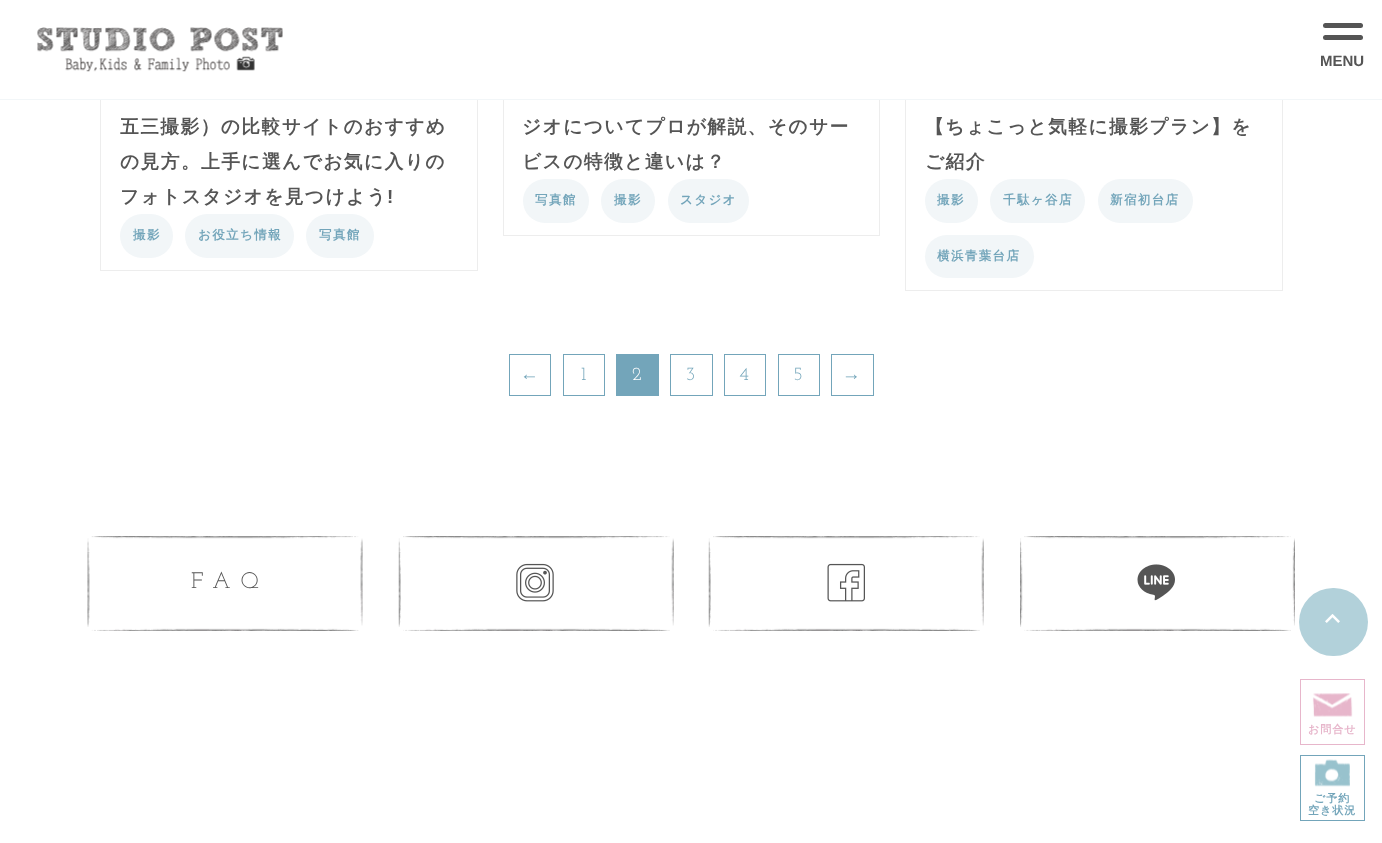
(async () => {
const canvas = document.querySelector("canvas")
canvas.width = 1382
canvas.height = 843
const c = canvas.getContext("2d")
c.miterLimit = 4
c.fontKerning = "normal"
function T(s,x,y){c.fillText(s,x,y)}
function R(x,y,w,h){c.fillRect(x,y,w,h)}
function Q(x,y,w,h,r){c.beginPath();c.roundRect(x,y,w,h,r);c.fill()}
async function I(src,x,y,w,h){const img=new Image();img.src=src;await img.decode();c.drawImage(img,x,y,w,h)}
c.fillStyle="#fff"
R(0,0,1382,843)
c.strokeStyle="#ededed"
c.strokeRect(100.5,-.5,377,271)
c.strokeRect(503.5,-.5,376,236)
c.strokeRect(905.5,-.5,377,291)
R(100,0,1183,99)
c.fillStyle="#f2f6f8"
R(0,99,1382,1)
await I("1.png",37,27,246,45)
c.fillStyle="#555"
Q(1323,23,40,5,2.5)
Q(1323,35,40,5,2.5)
c.font="bold 15px Liberation Sans"
T("MENU",1320,66)
c.letterSpacing="1.4px"
c.font="bold 18.75px WenQuanYi Zen Hei"
T("五三撮影）の比較サイトのおすすめ",120,133)
T("の見方。上手に選んでお気に入りの",120,168)
T("フォトスタジオを見つけよう",120,203)
c.font="bold 18.75px Liberation Sans"
T("!",387,203)
c.fillStyle="#f2f6f8"
Q(120,214,53,44,22)
c.font="bold 12.5px WenQuanYi Zen Hei"
c.fillStyle="#73a5ba"
T("撮影",133,239)
c.fillStyle="#f2f6f8"
Q(185,214,109,44,22)
c.fillStyle="#73a5ba"
T("お役立ち情報",198,239)
c.fillStyle="#f2f6f8"
Q(306,214,68,44,22)
c.fillStyle="#73a5ba"
T("写真館",319,239)
c.font="bold 18.75px WenQuanYi Zen Hei"
c.fillStyle="#555"
T("ジオについてプロが解説、そのサー",522,133)
T("ビスの特徴と違いは？",522,168)
c.fillStyle="#f2f6f8"
Q(523,179,66,44,22)
c.font="bold 12.5px WenQuanYi Zen Hei"
c.fillStyle="#73a5ba"
T("写真館",535,204)
c.fillStyle="#f2f6f8"
Q(601,179,54,44,22)
c.fillStyle="#73a5ba"
T("撮影",614,204)
c.fillStyle="#f2f6f8"
Q(668,179,81,44,22)
c.fillStyle="#73a5ba"
T("スタジオ",680,204)
c.font="bold 18.75px WenQuanYi Zen Hei"
c.fillStyle="#555"
T("【ちょこっと気軽に撮影プラン】を",925,133)
T("ご紹介",925,168)
c.fillStyle="#f2f6f8"
Q(925,179,53,44,22)
c.font="bold 12.5px WenQuanYi Zen Hei"
c.fillStyle="#73a5ba"
T("撮影",937,204)
c.fillStyle="#f2f6f8"
Q(990,179,95,44,22)
c.fillStyle="#73a5ba"
T("千駄ヶ谷店",1003,204)
c.fillStyle="#f2f6f8"
Q(1098,179,95,44,22)
c.fillStyle="#73a5ba"
T("新宿初台店",1110,204)
c.fillStyle="#f2f6f8"
Q(925,235,109,43,21.5)
c.fillStyle="#73a5ba"
T("横浜青葉台店",937,260)
c.strokeStyle="#73a5ba"
c.strokeRect(509.5,354.5,41,41)
c.font="18.75px Liberation Sans"
T("←",520,380)
c.strokeRect(563.5,354.5,41,41)
c.font="100 18.75px Josefin Slab"
T("1",581,380)
R(616,354,43,42)
c.fillStyle="#fff"
T("2",632,380)
c.strokeRect(670.5,354.5,42,41)
c.fillStyle="#73a5ba"
T("3",686,380)
c.strokeRect(724.5,354.5,41,41)
T("4",739,380)
c.strokeRect(778.5,354.5,41,41)
T("5",793,380)
c.strokeRect(831.5,354.5,42,41)
c.font="18.75px Liberation Sans"
T("→",842,380)
await I("2.png",87,536,276,95)
c.letterSpacing="11px"
c.font="100 22.5px Josefin Slab"
c.fillStyle="#555"
T("FAQ",191,588)
await I("3.png",398,536,276,95)
await I("4.png",516,563,38,39)
await I("5.png",708,536,276,95)
await I("6.png",827,563,38,39)
await I("7.png",1020,536,275,95)
await I("8.png",1137,564,38,37)
c.fillStyle="#b2d1da"
Q(1299,588,69,68,34)
await I("9.png",1325,614,15,9)
c.strokeStyle="#e7b6cb"
c.strokeRect(1300.5,679.5,64,65)
await I("10.png",1312,693,41,24)
c.letterSpacing="1px"
c.font="bold 11px WenQuanYi Zen Hei"
c.fillStyle="#e7b6cb"
T("お問合せ",1308,733)
c.strokeStyle="#73a5ba"
c.strokeRect(1300.5,755.5,64,65)
await I("11.png",1314,759,36,28)
c.fillStyle="#73a5ba"
T("ご予約",1314,802)
T("空き状況",1308,814)
})()
